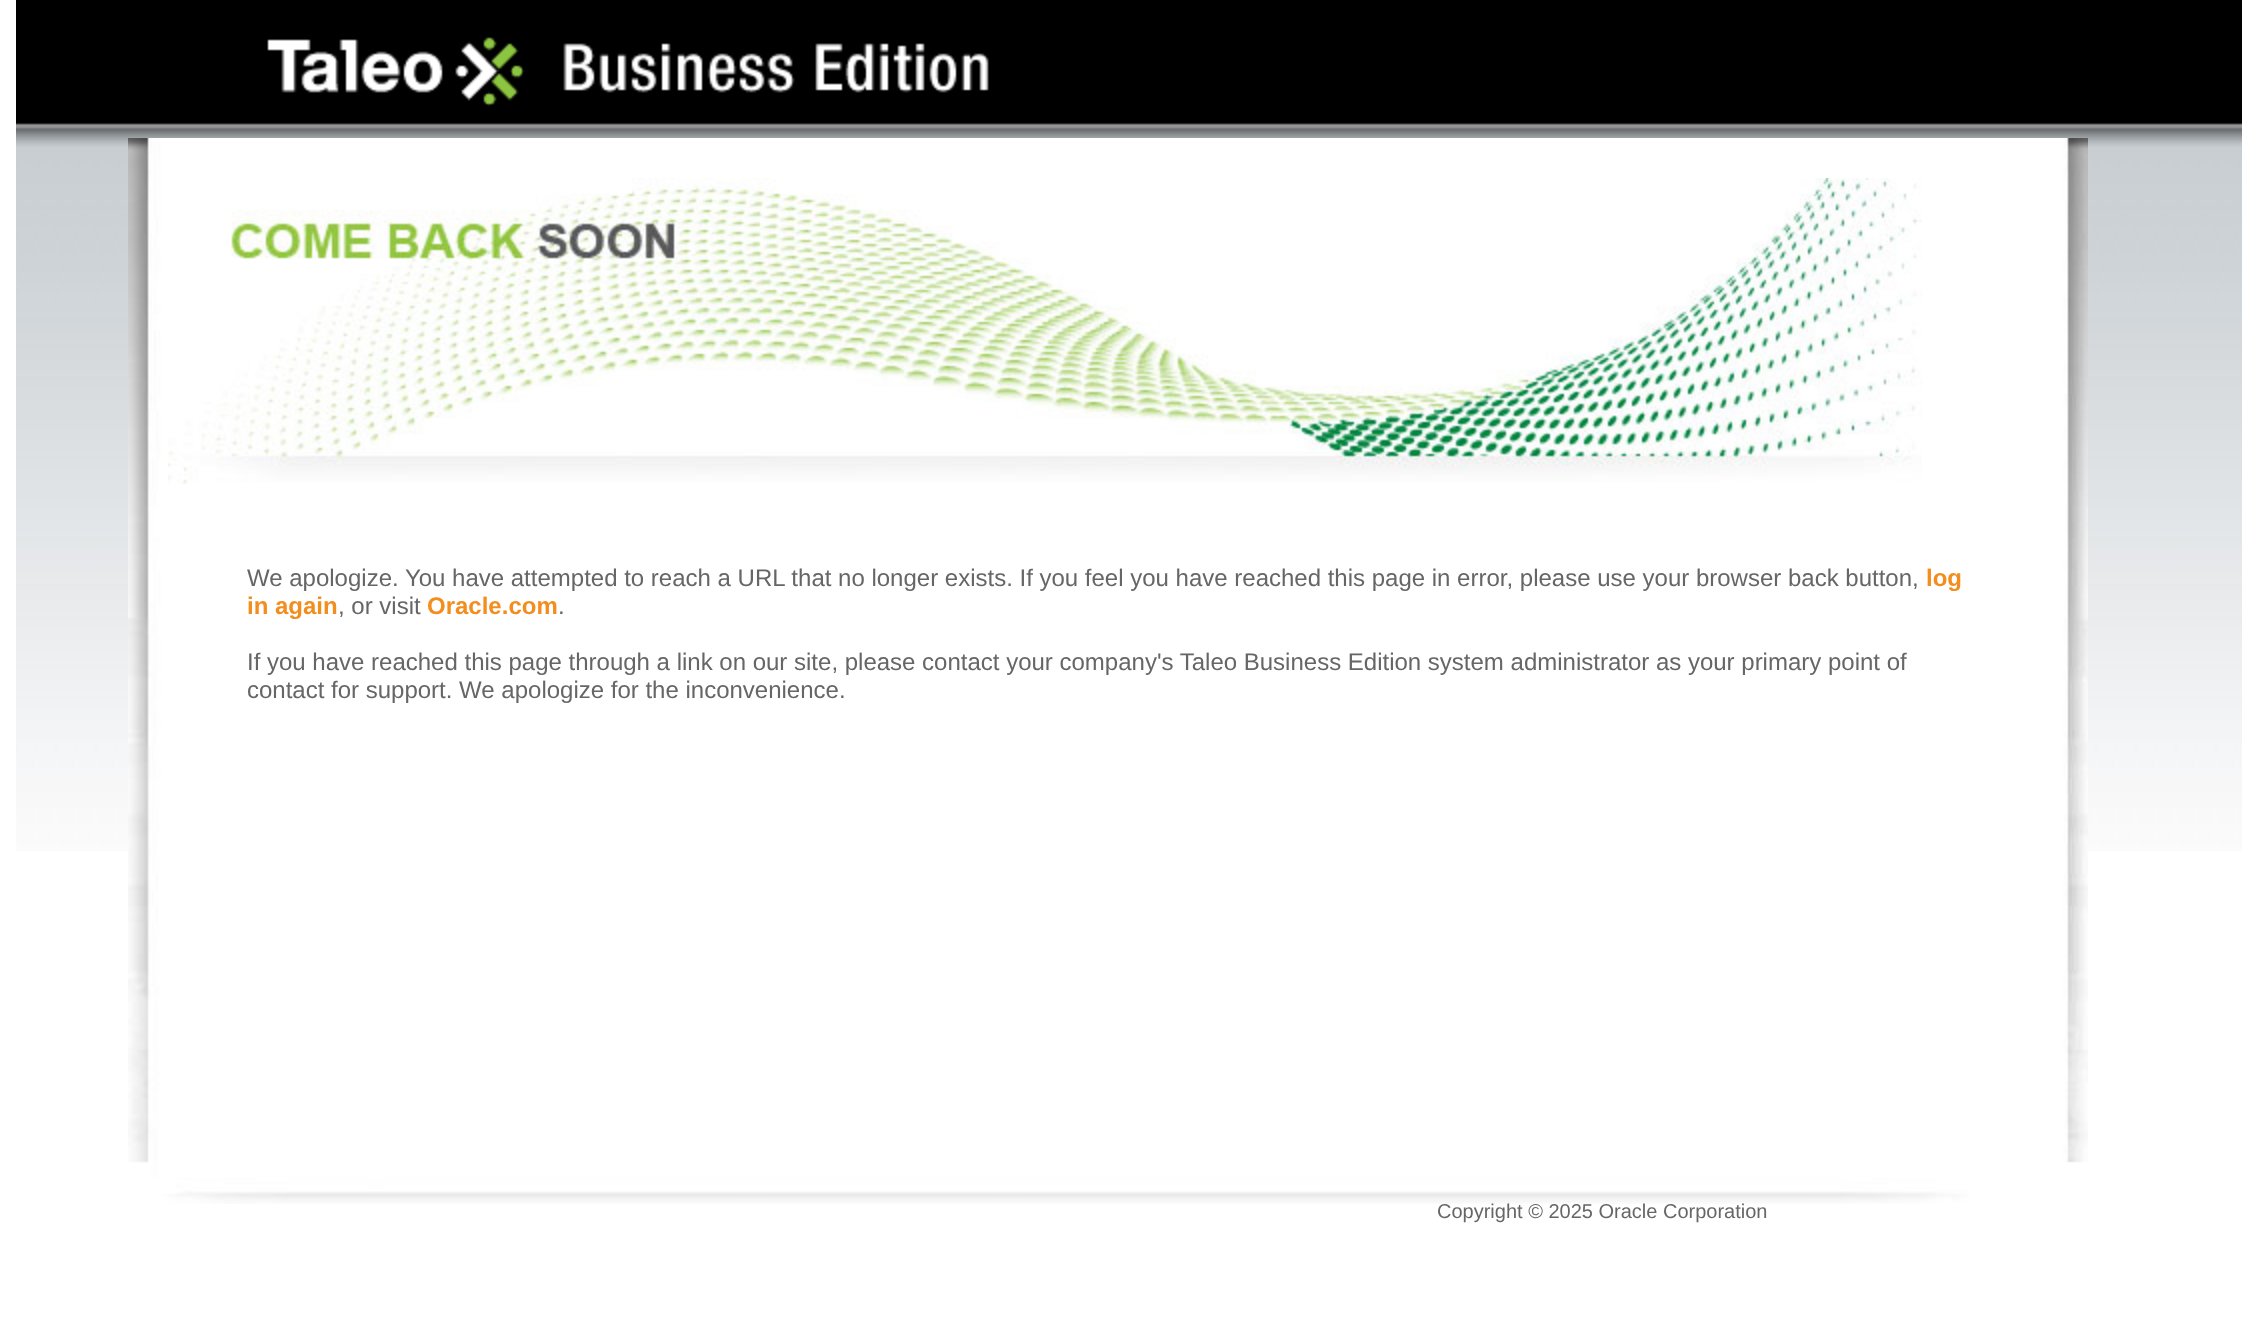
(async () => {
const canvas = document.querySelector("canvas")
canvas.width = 2258
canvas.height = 1323
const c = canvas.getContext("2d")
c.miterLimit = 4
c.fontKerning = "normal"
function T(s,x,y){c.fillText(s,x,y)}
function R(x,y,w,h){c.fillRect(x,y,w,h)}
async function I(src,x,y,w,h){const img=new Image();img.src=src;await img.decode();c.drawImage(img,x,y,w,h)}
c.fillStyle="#fff"
R(0,0,2258,1323)
await I("1.png",16,0,2226,851)
await I("2.png",267,37,722,70)
await I("3.png",128,138,1960,1066)
await I("4.png",168,178,1754,306)
c.font="24px Liberation Sans"
c.fillStyle="#666"
T("We apologize. You have attempted to reach a URL that no longer exists. If you feel you have reached this page in error, please use your browser back button,",247,586)
c.font="bold 24px Liberation Sans"
c.fillStyle="#f28d1e"
T("log",1926,586)
T("in again",247,614)
c.font="24px Liberation Sans"
c.fillStyle="#666"
T(", or visit",338,614)
c.font="bold 24px Liberation Sans"
c.fillStyle="#f28d1e"
T("Oracle.com",427,614)
c.font="24px Liberation Sans"
c.fillStyle="#666"
T(".",558,614)
T("If you have reached this page through a link on our site, please contact your company's Taleo Business Edition system administrator as your primary point of",247,670)
T("contact for support. We apologize for the inconvenience.",247,698)
c.font="20px Liberation Sans"
T("Copyright © 2025 Oracle Corporation",1437,1218)
})()
